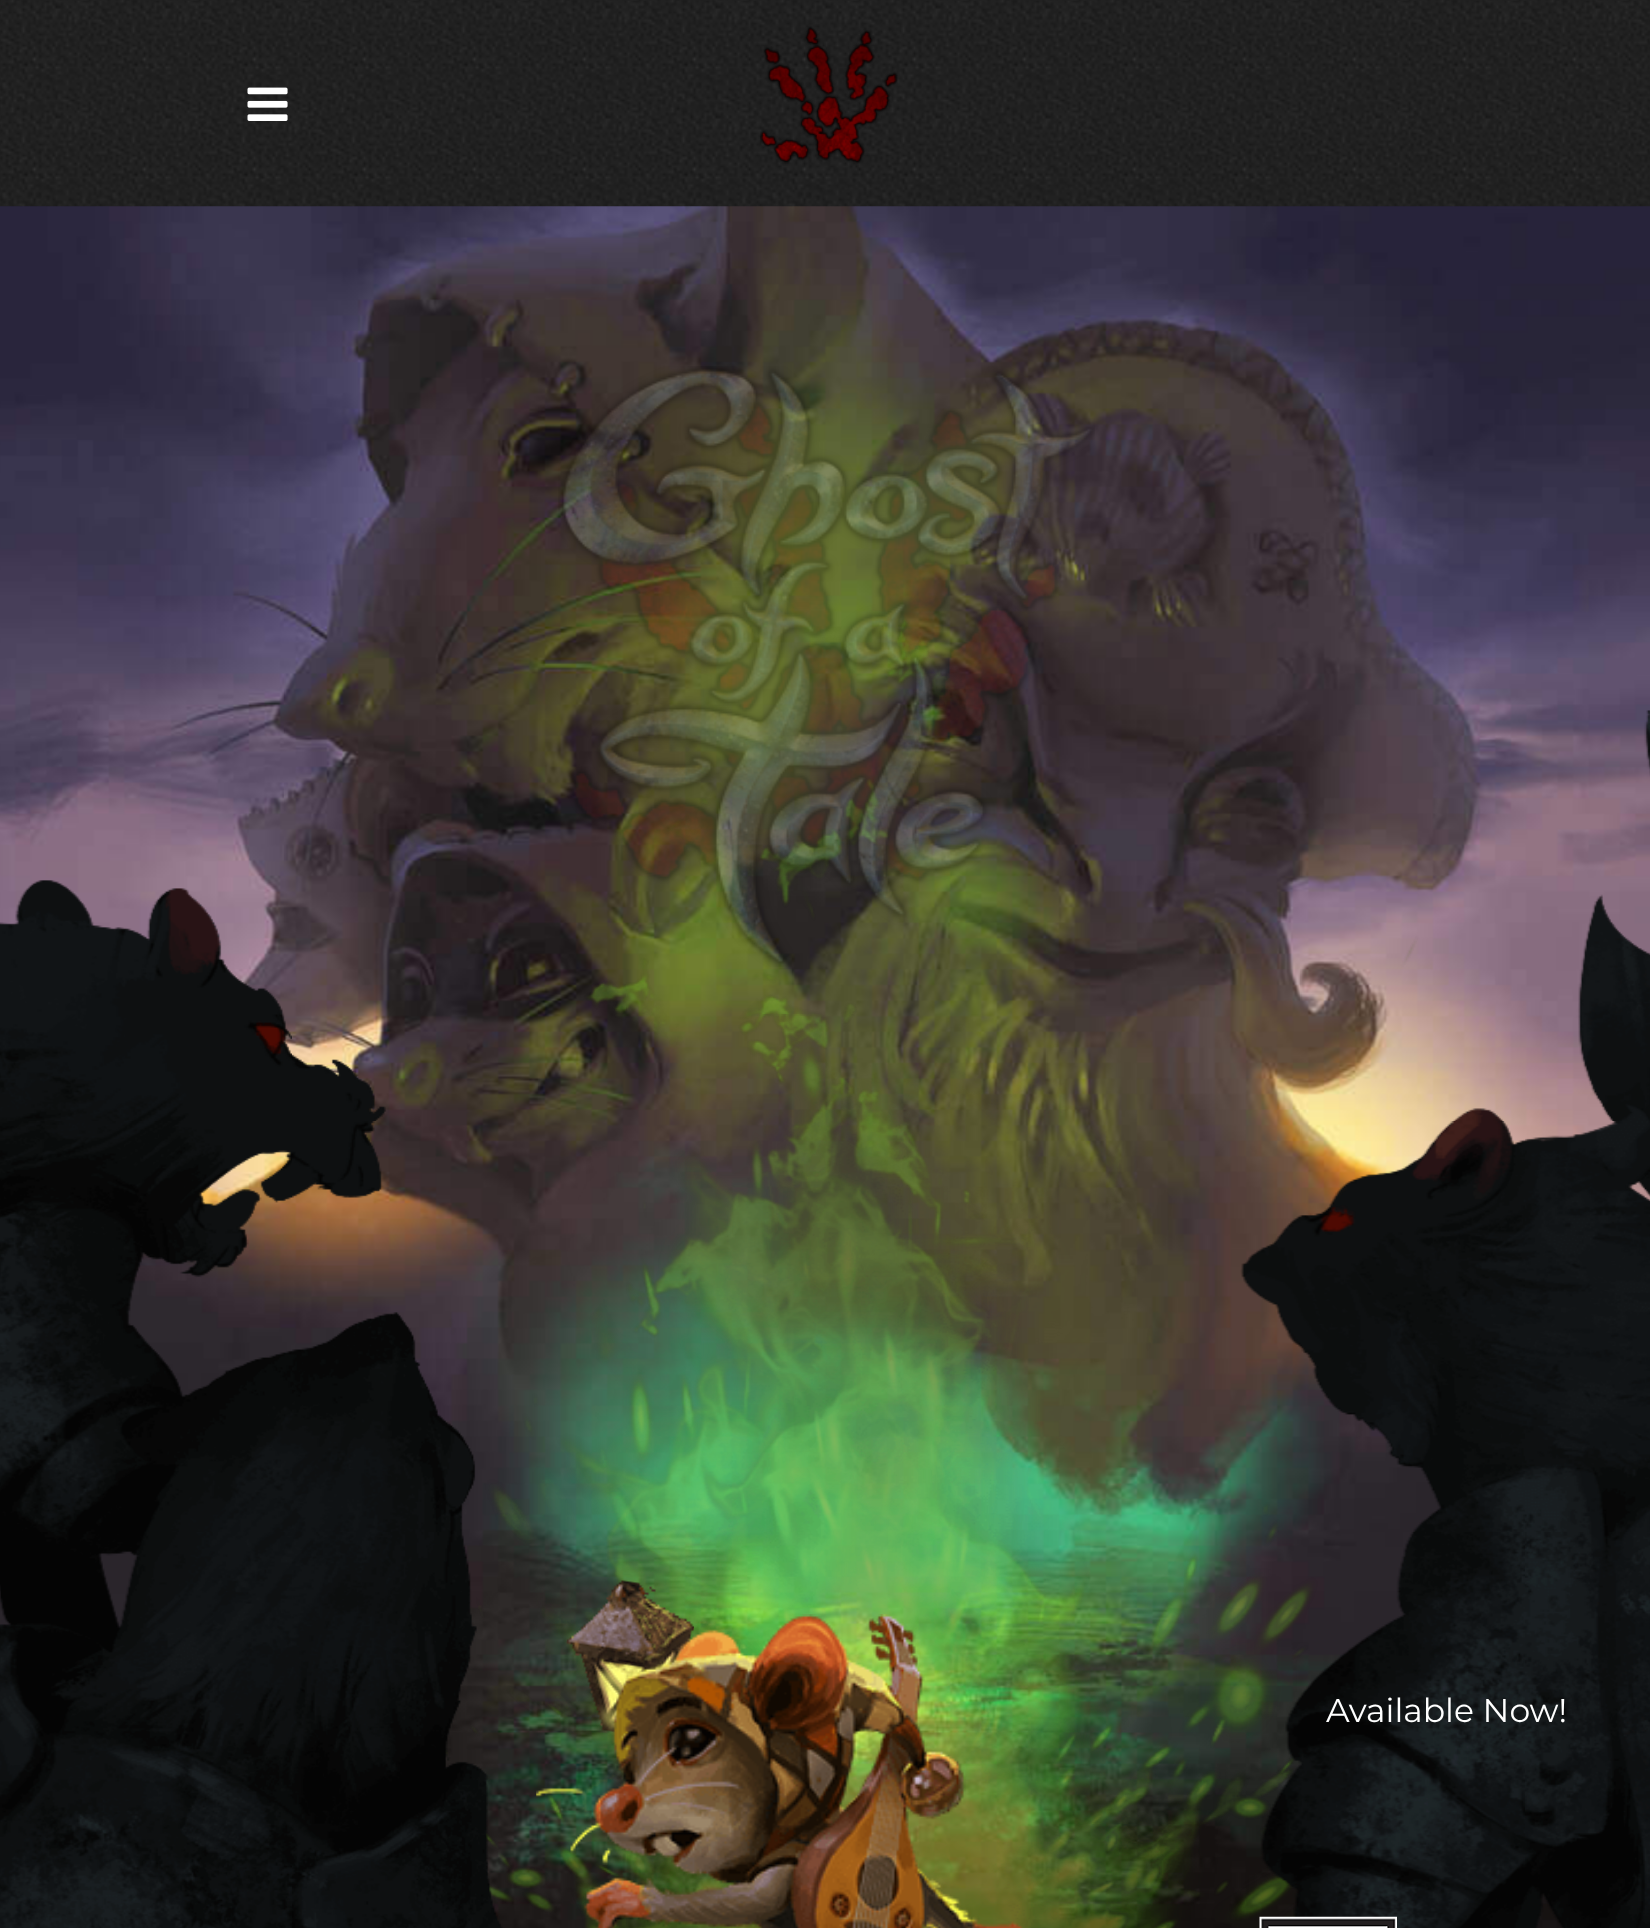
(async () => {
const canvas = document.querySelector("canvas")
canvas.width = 1650
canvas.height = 1928
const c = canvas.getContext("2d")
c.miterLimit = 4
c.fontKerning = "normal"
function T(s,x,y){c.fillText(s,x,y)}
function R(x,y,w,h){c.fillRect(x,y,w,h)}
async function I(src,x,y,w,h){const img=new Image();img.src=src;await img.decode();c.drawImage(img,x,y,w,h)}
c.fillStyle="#fff"
R(0,0,1650,1928)
await I("4.png",0,206,1650,1722)
await I("1.png",0,0,1650,207)
await I("2.png",247,87,41,34)
await I("3.png",760,26,138,138)
await I("6.png",405,612,1191,1316)
await I("5.png",558,366,537,601)
await I("8.png",566,1580,128,153)
await I("10.png",593,1650,90,85)
await I("9.png",536,1614,487,314)
await I("7.png",0,710,1650,1218)
c.font="100 33px Montserrat"
T("Available Now!",1326,1722)
await I("11.png",1259,1916,138,12)
})()
